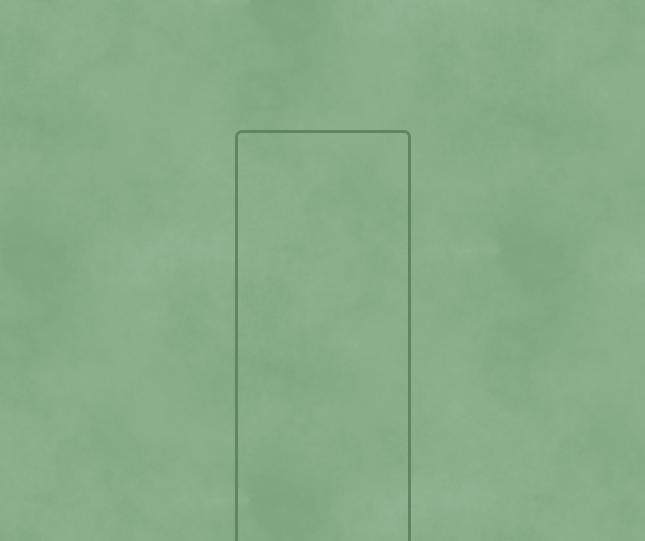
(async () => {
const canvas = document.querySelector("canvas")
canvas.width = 645
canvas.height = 541
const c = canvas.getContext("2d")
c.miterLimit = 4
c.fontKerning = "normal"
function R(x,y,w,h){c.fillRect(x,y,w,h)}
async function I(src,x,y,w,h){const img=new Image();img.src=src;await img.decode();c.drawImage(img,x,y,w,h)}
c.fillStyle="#fff"
R(0,0,645,541)
await I("1.png",0,0,645,541)
c.beginPath()
c.roundRect(236.5,131.5,173,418,5.5)
c.strokeStyle="#5f865f"
c.lineWidth=3
c.stroke()
})()
